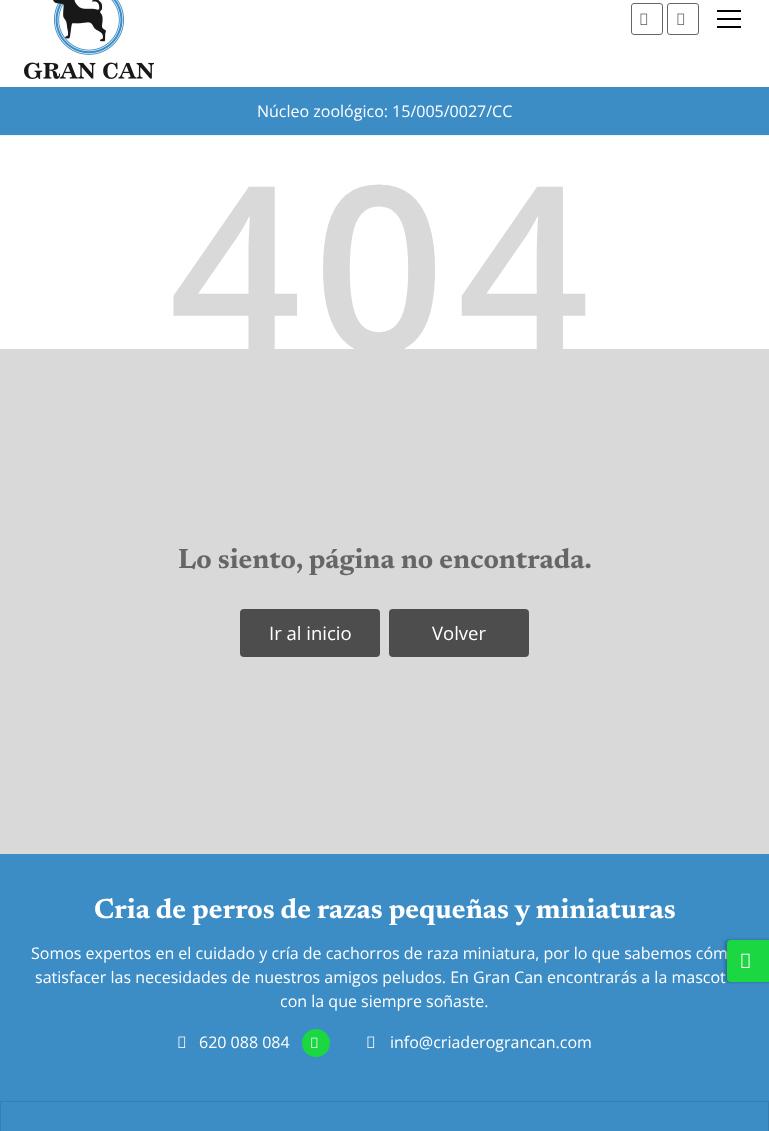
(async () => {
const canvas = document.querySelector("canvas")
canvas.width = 769
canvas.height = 1131
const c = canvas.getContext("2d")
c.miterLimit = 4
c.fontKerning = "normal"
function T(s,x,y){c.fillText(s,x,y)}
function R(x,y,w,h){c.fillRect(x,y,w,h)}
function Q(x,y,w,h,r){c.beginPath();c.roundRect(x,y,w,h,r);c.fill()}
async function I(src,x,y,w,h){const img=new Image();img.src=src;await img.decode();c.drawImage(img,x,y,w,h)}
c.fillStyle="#fff"
R(0,0,769,1131)
await I("1.png",24,0,130,79)
c.beginPath()
c.roundRect(631.5,3.5,31,31,2.5)
c.strokeStyle="#666"
c.stroke()
await I("2.png",640,13,8,12)
c.beginPath()
c.roundRect(667.5,3.5,31,31,2.5)
c.stroke()
await I("2.png",677,13,8,12)
c.fillStyle="#000"
R(717,10,24,2)
R(717,18,24,2)
R(717,26,24,2)
c.fillStyle="#3c8cc6"
R(0,87,769,48)
c.font="16px Open Sans"
c.fillStyle="#fff"
T("Núcleo zoológico: 15/005/0027/CC",257,117)
c.fillStyle="#f2f2f2"
R(0,135,769,1)
c.letterSpacing="12px"
c.font="600 231px Open Sans"
c.fillStyle="#d9d9d9"
T("404",169,352)
R(0,349,769,505)
c.letterSpacing="0px"
c.font="bold 28px Newsreader"
c.fillStyle="#666"
T("Lo siento, página no encontrada.",178,568)
c.fillStyle="#4d4d4d"
Q(240,609,140,48,4)
c.font="18.5px Open Sans"
c.fillStyle="#fff"
T("Ir al inicio",269,640)
c.fillStyle="#4d4d4d"
Q(389,609,140,48,4)
c.fillStyle="#fff"
T("Volver",432,640)
c.fillStyle="#3c8cc6"
R(0,854,769,277)
c.font="bold 28px Newsreader"
c.fillStyle="#fff"
T("Cria de perros de razas pequeñas y miniaturas",94,918)
c.font="16px Open Sans"
T("Somos expertos en el cuidado y cría de cachorros de raza miniatura, por lo que sabemos cóm",31,959)
T("satisfacer las necesidades de nuestros amigos peludos. En Gran Can encontrarás a la mascot",35,983)
T("con la que siempre soñaste.",280,1007)
await I("3.png",178,1036,8,12)
T("620 088 084",199,1048)
c.fillStyle="#1bd741"
c.beginPath()
c.arc(316,1043,14,0,7)
c.fill()
await I("4.png",311,1037,7,11)
await I("3.png",367,1036,8,12)
c.fillStyle="#fff"
T("info@criaderograncan.com",390,1048)
c.strokeStyle="#367eb2"
c.strokeRect(.5,1101.5,768,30)
c.fillStyle="#00000040"
c.filter="blur(1.5px)"
c.beginPath()
c.roundRect(725,940,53,42,4)
c.fill()
c.filter="none"
c.fillStyle="#1bd741"
c.beginPath()
c.roundRect(727,940,42,42,[4,0,0,4])
c.fill()
await I("5.png",741,953,9,15)
})()
